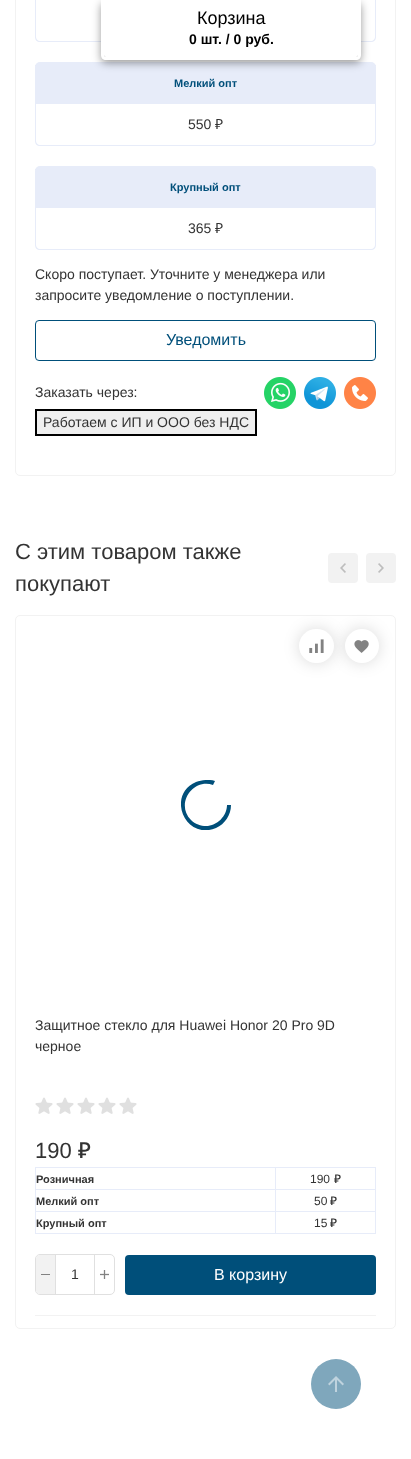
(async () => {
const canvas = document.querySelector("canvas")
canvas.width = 411
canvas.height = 1459
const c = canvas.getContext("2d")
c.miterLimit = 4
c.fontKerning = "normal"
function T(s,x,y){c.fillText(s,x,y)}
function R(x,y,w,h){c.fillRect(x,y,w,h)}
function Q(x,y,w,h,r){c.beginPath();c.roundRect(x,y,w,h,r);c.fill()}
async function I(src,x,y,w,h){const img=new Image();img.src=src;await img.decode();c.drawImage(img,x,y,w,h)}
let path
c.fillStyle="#fff"
R(0,0,411,1459)
c.beginPath()
c.roundRect(15.5,-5.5,380,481,4.5)
c.strokeStyle="#f2f2f2"
c.stroke()
c.fillStyle="#e7ecf9"
path = new Path2D("M35 0h341v37c0 3-2 5-5 5h-331c-3 0-5-2-5-5zm1 0h339v37c0 2-2 4-4 4h-331c-2 0-4-2-4-4z")
c.fill(path,"evenodd")
c.beginPath()
c.roundRect(35,62,341,42,[5,5,0,0])
c.fill()
c.fillStyle="#00000066"
c.filter="blur(4px)"
c.beginPath()
c.roundRect(101,3,260,60,5)
c.fill()
c.filter="none"
c.fillStyle="#fff"
c.beginPath()
c.roundRect(104,0,254,57,[0,0,2,2])
c.fill()
path = new Path2D("M101 0h260v55c0 3-2 5-5 5h-250c-3 0-5-2-5-5zm3 0h254v55c0 1-1 2-2 2h-250c-1 0-2-1-2-2z")
c.fill(path,"evenodd")
c.font="18px Liberation Sans"
c.fillStyle="#000"
T("Корзина",197,24)
c.font="bold 14px Liberation Sans"
T("0 шт. / 0 руб.",189,44)
c.fillStyle="#e7ecf9"
R(375,65,1,1)
R(35,65,1,1)
c.font="bold 11px Liberation Sans"
c.fillStyle="#004f7a"
T("Мелкий опт",174,87)
c.fillStyle="#e7ecf9"
path = new Path2D("M35 104h341v37c0 3-2 5-5 5h-331c-3 0-5-2-5-5zm1 0h339v37c0 2-2 4-4 4h-331c-2 0-4-2-4-4z")
c.fill(path,"evenodd")
c.font="14px Liberation Sans"
c.fillStyle="#333"
T("550",188,129)
c.font="14px Noto Sans"
T("₽",215,129)
c.fillStyle="#e7ecf9"
c.beginPath()
c.roundRect(35,166,341,42,[5,5,0,0])
c.fill()
R(375,169,1,1)
R(35,169,1,1)
c.font="bold 11px Liberation Sans"
c.fillStyle="#004f7a"
T("Крупный опт",170,191)
c.fillStyle="#e7ecf9"
path = new Path2D("M35 208h341v37c0 3-2 5-5 5h-331c-3 0-5-2-5-5zm1 0h339v37c0 2-2 4-4 4h-331c-2 0-4-2-4-4z")
c.fill(path,"evenodd")
c.font="14px Liberation Sans"
c.fillStyle="#333"
T("365",188,233)
c.font="14px Noto Sans"
T("₽",215,233)
c.font="14px Liberation Sans"
T("Скоро поступает. Уточните у менеджера или",35,279)
T("запросите уведомление о поступлении.",35,300)
c.beginPath()
c.roundRect(35.5,320.5,340,40,3.5)
c.strokeStyle="#004f7a"
c.stroke()
c.font="16px Liberation Sans"
c.fillStyle="#004f7a"
T("Уведомить",166,345)
c.font="14px Liberation Sans"
c.fillStyle="#333"
T("Заказать через:",35,397)
await I("1.png",264,377,32,32)
await I("2.png",304,377,32,32)
await I("3.png",344,377,32,32)
c.fillStyle="#efefef"
c.beginPath()
c.rect(36,410,220,25)
c.fill()
c.strokeStyle="#000"
c.lineWidth=2
c.stroke()
c.fillStyle="#333"
T("Работаем с ИП и ООО без НДС",43,427)
c.font="22px Liberation Sans"
T("C этим товаром также",15,559)
T("покупают",15,591)
c.fillStyle="#f2f2f2"
Q(328,553,30,30,4)
await I("4.png",340,563,6,10)
Q(366,553,30,30,4)
await I("5.png",378,563,6,10)
c.beginPath()
c.roundRect(15.5,615.5,380,713,4.5)
c.strokeStyle="#f2f2f2"
c.lineWidth=1
c.stroke()
c.fillStyle="#00000026"
c.filter="blur(8px)"
c.beginPath()
c.roundRect(299,629,35,34,17)
c.fill()
c.filter="none"
c.fillStyle="#fff"
Q(299,629,35,34,17)
c.fillStyle="#00000026"
c.filter="blur(8px)"
c.beginPath()
c.roundRect(345,629,34,34,17)
c.fill()
c.filter="none"
await I("6.png",309,639,15,14)
c.fillStyle="#fff"
c.beginPath()
c.arc(362,646,17,0,7)
c.fill()
await I("7.png",354,640,15,13)
c.save()
c.beginPath()
c.rect(181,780,50,50)
c.clip()
c.fillStyle="#004f7a"
path = new Path2D("M206 826c-5 0-11-2-15-6c-16-16 2-42 22-35l2-4c-6-2-13-1-19 1c-30 13-11 59 20 46c9-4 15-13 15-23h-4c0 11-10 21-21 21z")
c.fill(path)
c.restore()
c.font="14px Liberation Sans"
c.fillStyle="#333"
T("Защитное стекло для Huawei Honor 20 Pro 9D",35,1030)
T("черное",35,1051)
await I("8.png",35,1097,18,17)
await I("8.png",56,1097,18,17)
await I("8.png",77,1097,18,17)
await I("8.png",98,1097,18,17)
await I("8.png",119,1097,18,17)
c.font="22px Liberation Sans"
T("190",35,1158)
c.font="500 22px Noto Sans"
T("₽",78,1158)
c.fillStyle="#e7ecf9"
R(35,1167,341,1)
R(275,1167,1,22)
R(35,1167,1,22)
c.font="bold 11px Liberation Sans"
c.fillStyle="#333"
T("Розничная",36,1183)
c.fillStyle="#e7ecf9"
R(375,1167,1,22)
c.font="12px Liberation Sans"
c.fillStyle="#333"
T("190",310,1183)
c.font="500 12px Noto Sans"
T("₽",334,1183)
c.fillStyle="#e7ecf9"
R(35,1189,341,1)
R(275,1189,1,22)
R(35,1189,1,22)
c.font="bold 11px Liberation Sans"
c.fillStyle="#333"
T("Мелкий опт",36,1205)
c.fillStyle="#e7ecf9"
R(375,1189,1,22)
c.font="12px Liberation Sans"
c.fillStyle="#333"
T("50",314,1205)
c.font="500 12px Noto Sans"
T("₽",330,1205)
c.strokeStyle="#e7ecf9"
c.strokeRect(35.5,1211.5,240,22)
c.font="bold 11px Liberation Sans"
T("Крупный опт",36,1227)
c.fillStyle="#e7ecf9"
R(276,1211,100,1)
R(375,1211,1,23)
R(276,1233,100,1)
c.font="12px Liberation Sans"
c.fillStyle="#333"
T("15",314,1227)
c.font="500 12px Noto Sans"
T("₽",330,1227)
c.beginPath()
c.roundRect(35.5,1254.5,79,40,4.5)
c.strokeStyle="#e0e0e0"
c.stroke()
c.fillStyle="#f2f2f2"
c.beginPath()
c.roundRect(36,1255,19,39,[4,0,0,4])
c.fill()
c.fillStyle="#828282"
R(41,1274,9,1)
c.fillStyle="#e0e0e0"
path = new Path2D("M56 1255v39h-1v-39zm39 0v39h-1v-39z")
c.fill(path,"evenodd")
c.font="14px Liberation Sans"
c.fillStyle="#333"
T("1",71,1279)
await I("9.png",100,1270,9,9)
c.fillStyle="#004f7a"
Q(125,1255,251,40,4)
c.font="16px Liberation Sans"
c.fillStyle="#fff"
T("В корзину",214,1280)
c.fillStyle="#f2f2f2"
R(35,1315,341,1)
c.fillStyle="#7fa7bc"
c.beginPath()
c.arc(336,1384,25,0,7)
c.fill()
await I("10.png",328,1376,16,16)
})()
